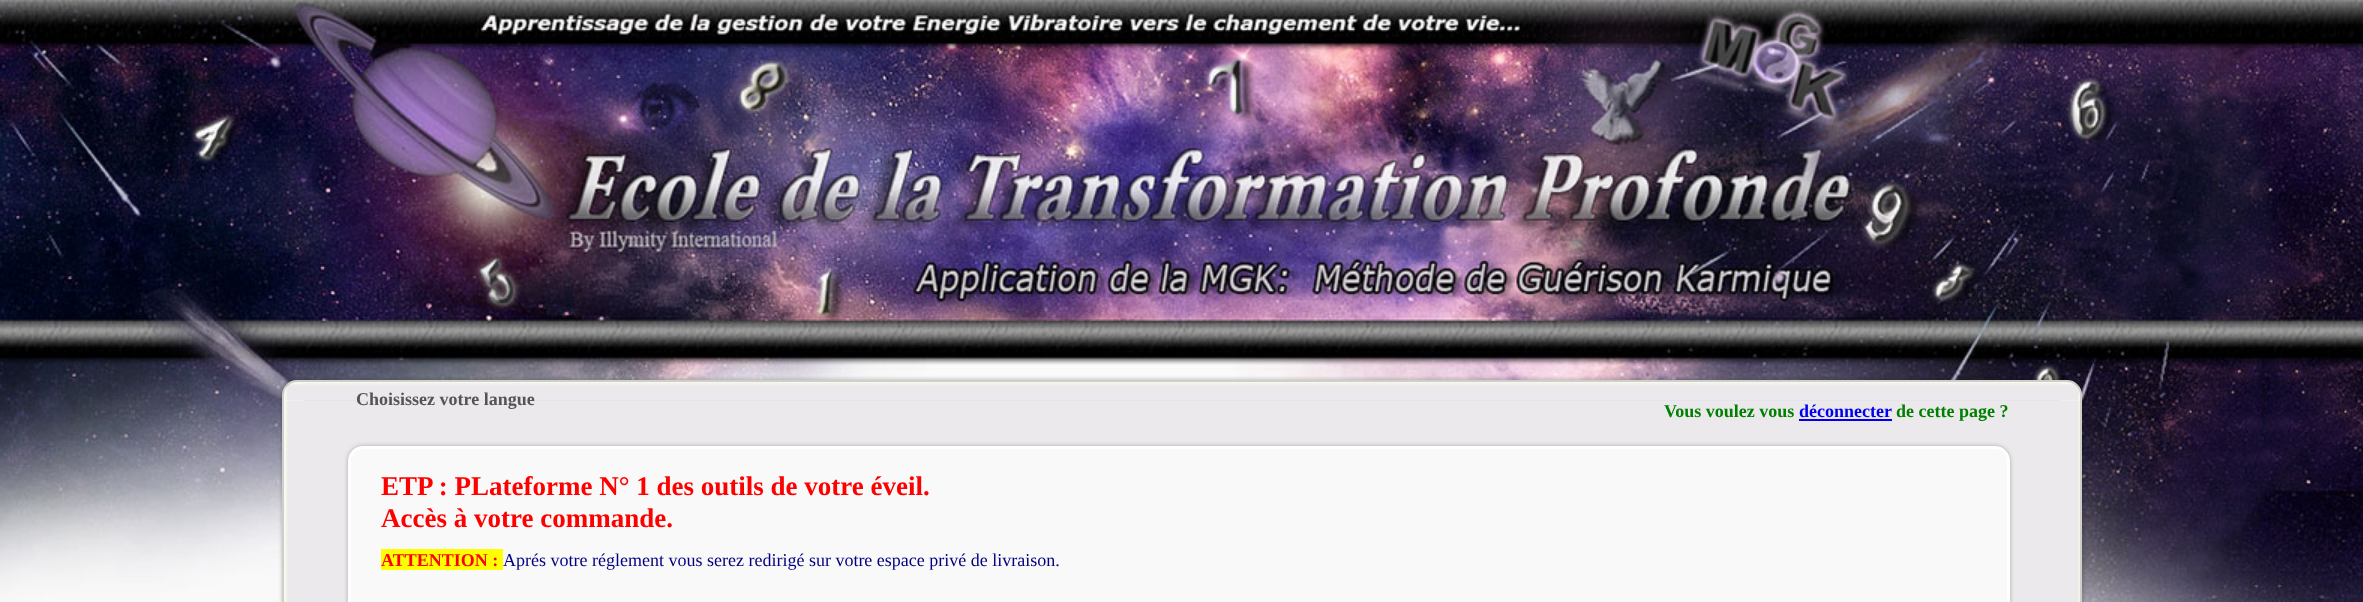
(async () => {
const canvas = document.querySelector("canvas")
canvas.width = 2363
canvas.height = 602
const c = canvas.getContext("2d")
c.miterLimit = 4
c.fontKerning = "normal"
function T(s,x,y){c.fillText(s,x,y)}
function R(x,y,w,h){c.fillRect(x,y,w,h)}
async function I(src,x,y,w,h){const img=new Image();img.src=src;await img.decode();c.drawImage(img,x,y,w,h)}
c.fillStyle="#fff"
R(0,0,2363,602)
await I("1.png",0,0,2363,602)
c.fillStyle="#00000026"
c.filter="blur(1.5px)"
c.beginPath()
c.roundRect(281,378,1803,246,17)
c.fill()
c.filter="none"
c.fillStyle="#f8f7f1"
c.beginPath()
c.roundRect(283,381,1798,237,14)
c.fill()
c.strokeStyle="#ccd0c8"
c.lineWidth=2
c.stroke()
await I("2.png",286,384,17,17)
await I("3.png",303,383,1758,18)
await I("4.png",2061,384,18,17)
c.fillStyle="#beb4e133"
R(303,400,1758,202)
c.font="bold 18px Liberation Serif"
c.fillStyle="#555"
T("Choisissez votre langue",356,405)
c.fillStyle="#008000"
T("Vous voulez vous",1664,417)
c.fillStyle="#00e"
T("déconnecter",1799,417)
R(1799,419,93,2)
c.fillStyle="#008000"
T("de cette page ?",1896,417)
c.fillStyle="#aaa"
c.filter="blur(2px)"
c.beginPath()
c.roundRect(348,446,1662,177,15)
c.fill()
c.filter="none"
c.fillStyle="#f9f9f9"
c.beginPath()
c.roundRect(349.5,447.5,1659,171,13.5)
c.fill()
c.strokeStyle="#fff"
c.lineWidth=3
c.stroke()
c.font="bold 27px Liberation Serif"
c.fillStyle="#f00"
T("ETP : PLateforme N° 1 des outils de votre éveil.",381,495)
T("Accès à votre commande.",381,527)
c.fillStyle="#ff0"
R(381,549,122,21)
c.font="bold 18px Liberation Serif"
c.fillStyle="#f00"
T("ATTENTION :",381,566)
c.font="18px Liberation Serif"
c.fillStyle="#000080"
T("Aprés votre réglement vous serez redirigé sur votre espace privé de livraison.",503,566)
await I("5.png",286,401,17,201)
await I("6.png",2061,401,19,201)
})()
